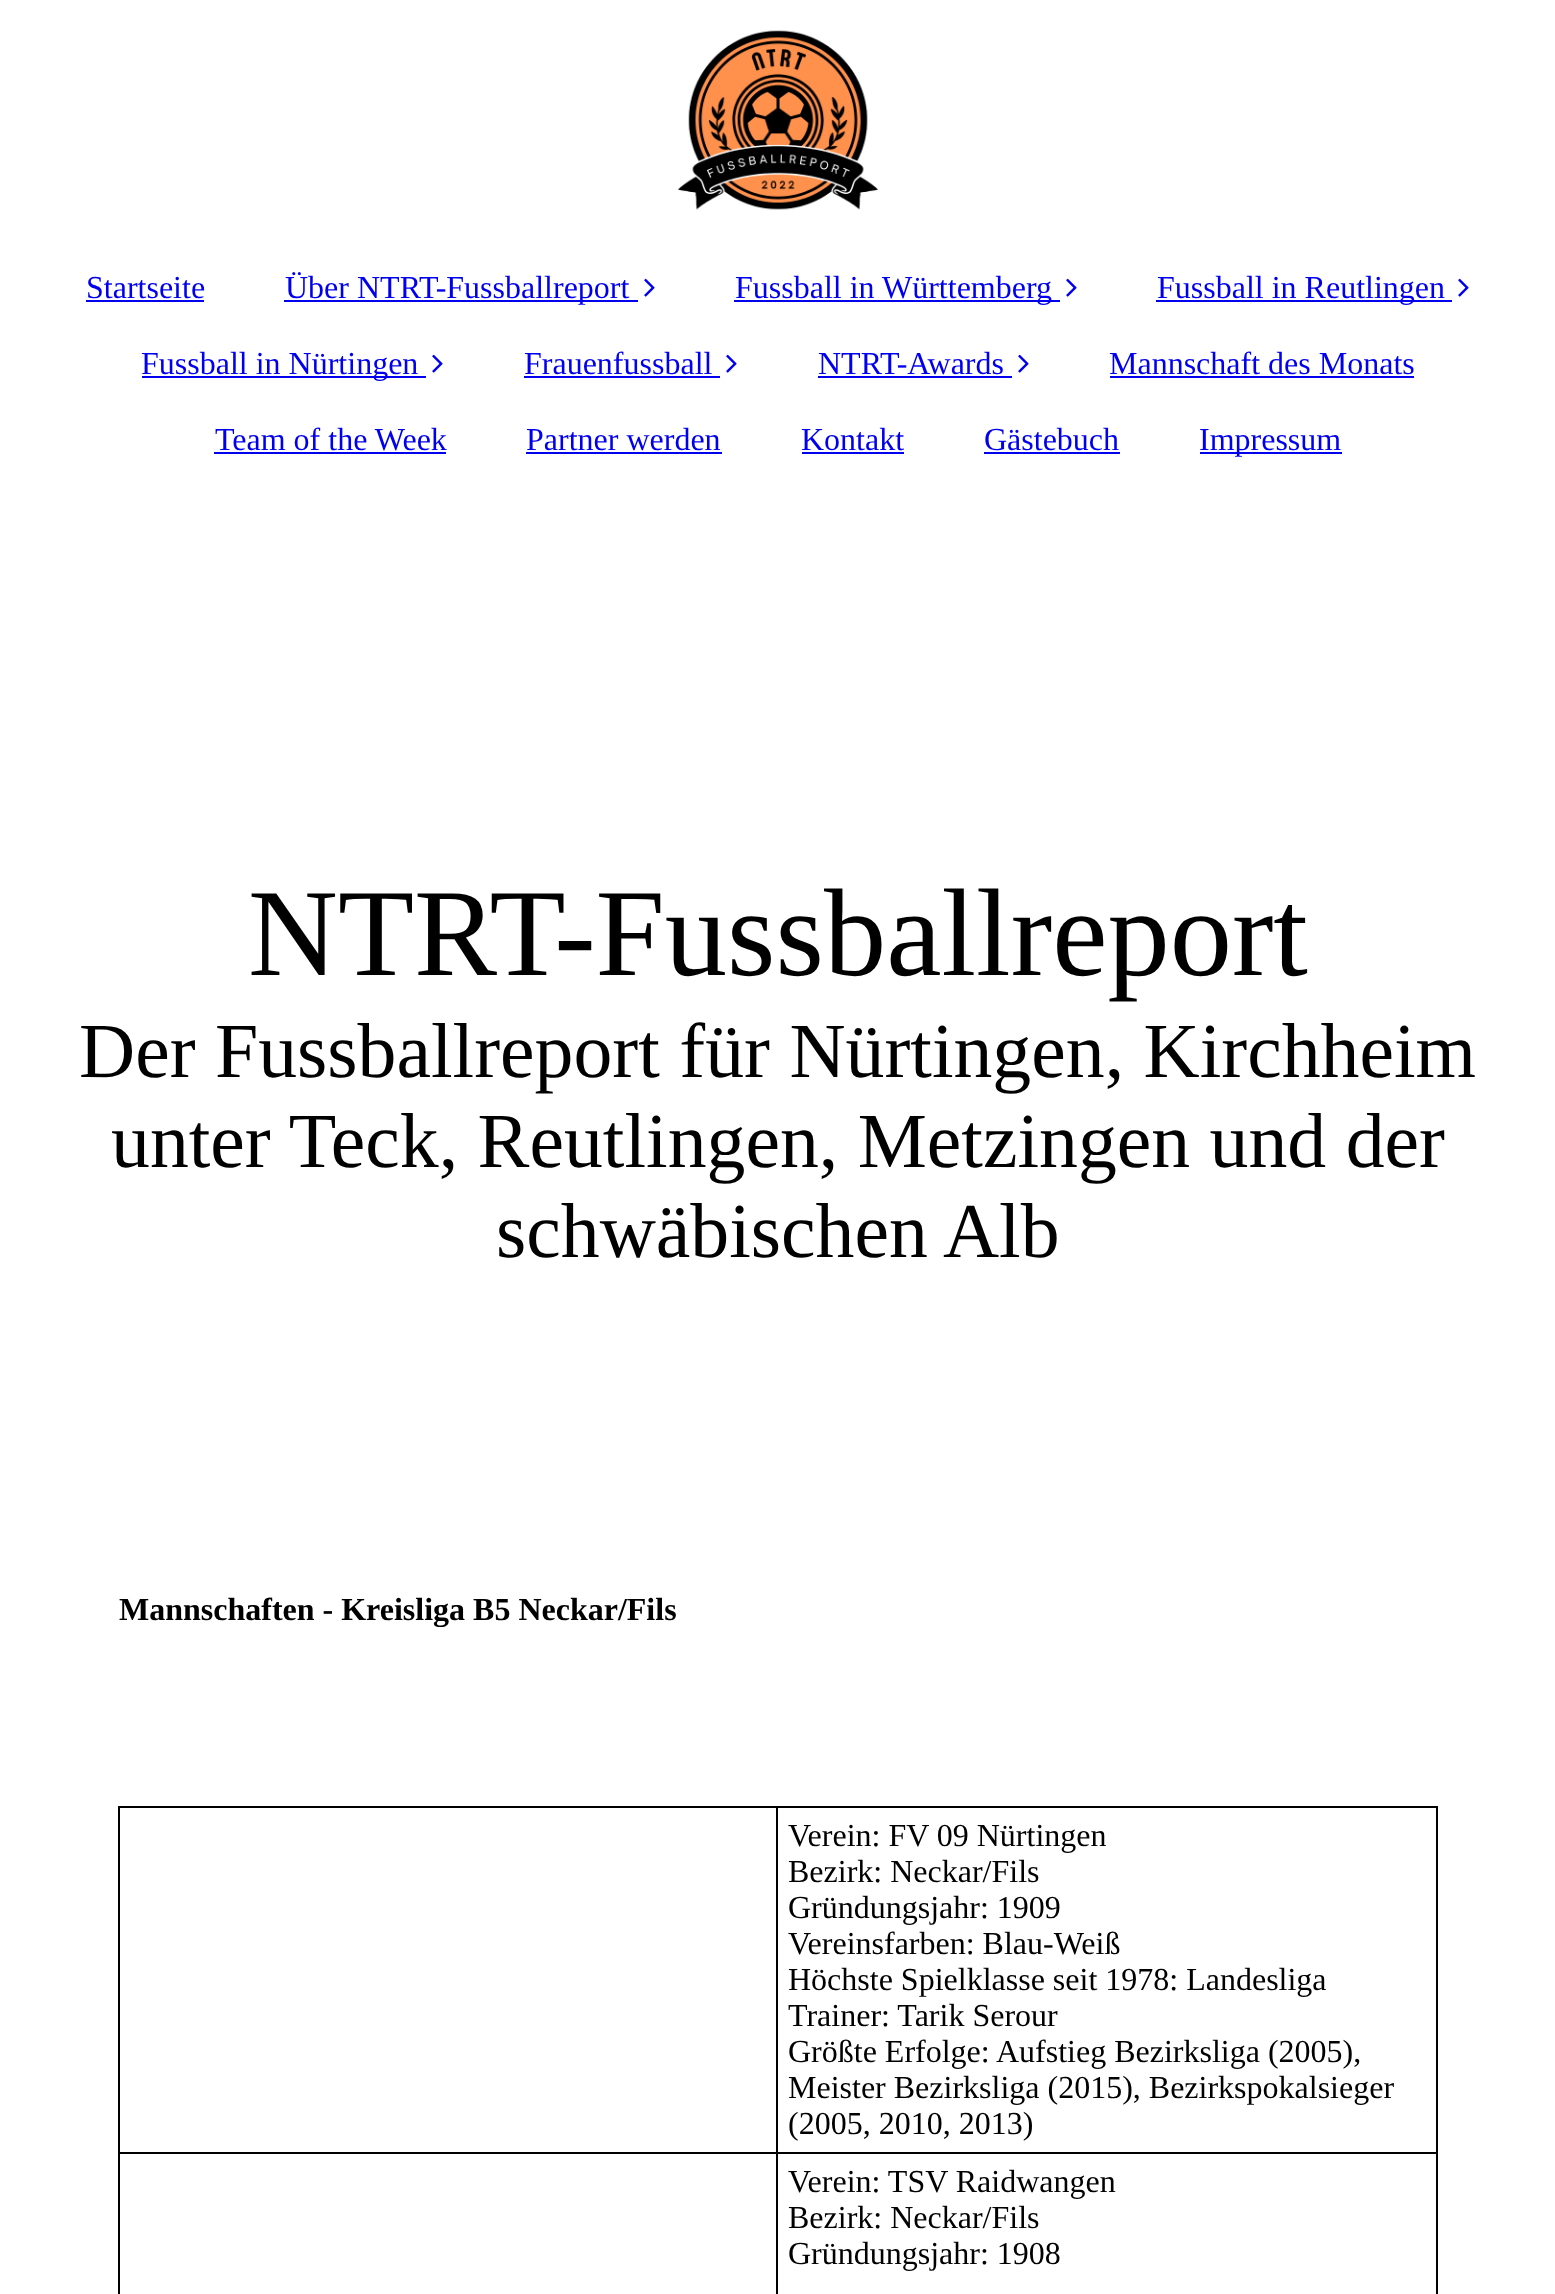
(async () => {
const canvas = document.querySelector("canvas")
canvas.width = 1555
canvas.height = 2294
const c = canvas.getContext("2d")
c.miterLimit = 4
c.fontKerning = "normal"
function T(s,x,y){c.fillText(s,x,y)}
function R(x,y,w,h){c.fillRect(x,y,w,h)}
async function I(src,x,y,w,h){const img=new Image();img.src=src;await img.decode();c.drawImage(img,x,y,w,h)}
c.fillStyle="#fff"
R(0,0,1555,2294)
await I("1.png",678,30,200,180)
c.font="32px Liberation Serif"
c.fillStyle="#00e"
T("Startseite",86,298)
R(86,300,118,2)
R(284,300,354,2)
T("Über NTRT-Fussballreport",285,298)
await I("2.png",644,278,11,19)
R(734,300,326,2)
T("Fussball in Württemberg",735,298)
await I("2.png",1066,278,11,19)
R(1156,300,288,2)
T("Fussball in Reutlingen",1157,298)
await I("2.png",1458,278,11,19)
R(1444,300,8,2)
R(142,376,284,2)
T("Fussball in Nürtingen",141,374)
await I("2.png",432,354,11,19)
T("Frauenfussball",524,374)
R(524,376,196,2)
await I("2.png",726,354,11,19)
T("NTRT-Awards",818,374)
R(818,376,194,2)
await I("2.png",1018,354,11,19)
T("Mannschaft des Monats",1109,374)
R(1110,376,304,2)
T("Team of the Week",215,450)
R(214,452,232,2)
T("Partner werden",526,450)
R(526,452,196,2)
T("Kontakt",801,450)
R(802,452,102,2)
T("Gästebuch",984,450)
R(984,452,136,2)
R(1200,452,142,2)
T("Impressum",1199,450)
c.font="124.5px Liberation Serif"
c.fillStyle="#000"
T("NTRT-Fussballreport",248,975)
c.font="77.75px Liberation Serif"
T("Der Fussballreport für Nürtingen, Kirchheim",79,1077)
T("unter Teck, Reutlingen, Metzingen und der",111,1167)
T("schwäbischen Alb",496,1257)
c.font="bold 32px Liberation Serif"
T("Mannschaften - Kreisliga B5 Neckar/Fils",119,1620)
c.strokeStyle="#000"
c.lineWidth=2
c.strokeRect(119,1807,1318,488)
R(776,1808,2,486)
R(120,2152,1316,2)
c.font="32px Liberation Serif"
T("Verein: FV 09 Nürtingen",788,1846)
T("Bezirk: Neckar/Fils",788,1882)
T("Gründungsjahr: 1909",788,1918)
T("Vereinsfarben: Blau-Weiß",788,1954)
T("Höchste Spielklasse seit 1978: Landesliga",788,1990)
T("Trainer: Tarik Serour",788,2026)
T("Größte Erfolge: Aufstieg Bezirksliga (2005),",788,2062)
T("Meister Bezirksliga (2015), Bezirkspokalsieger",788,2098)
T("(2005, 2010, 2013)",788,2134)
T("Verein: TSV Raidwangen",788,2192)
T("Bezirk: Neckar/Fils",788,2228)
T("Gründungsjahr: 1908",788,2264)
})()
